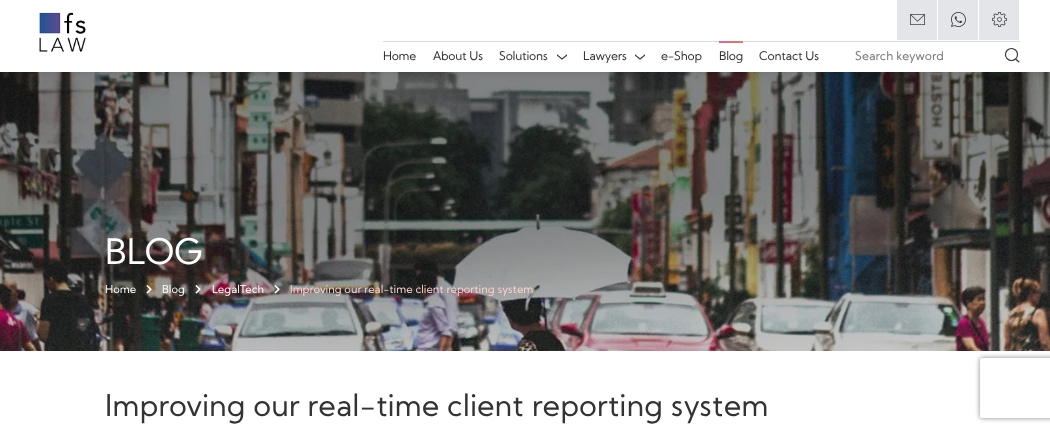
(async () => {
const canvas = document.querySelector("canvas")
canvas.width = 1050
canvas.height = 432
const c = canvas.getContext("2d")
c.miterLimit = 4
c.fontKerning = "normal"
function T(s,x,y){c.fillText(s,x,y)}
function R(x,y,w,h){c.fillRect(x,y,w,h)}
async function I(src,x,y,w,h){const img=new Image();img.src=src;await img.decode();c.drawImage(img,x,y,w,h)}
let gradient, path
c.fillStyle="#fff"
R(0,0,1050,432)
await I("6.png",0,72,1050,279)
c.fillStyle="#00000026"
c.filter="blur(5px)"
c.beginPath()
c.rect(0,0,1050,72)
c.fill()
c.filter="none"
c.fillStyle="#fff"
R(0,0,1050,72)
await I("1.png",39,12,47,40)
c.fillStyle="#e4e5e9"
R(897,0,40,40)
await I("2.png",910,14,15,11)
R(938,0,40,40)
await I("3.png",951,12,15,15)
R(979,0,40,40)
await I("4.png",992,12,15,15)
c.fillStyle="#dedad9"
R(383,41,637,1)
c.letterSpacing="-0.25px"
c.font="12px Kumbh Sans"
c.fillStyle="#333"
T("Home",383,60)
T("About Us",433,60)
T("Solutions",499,60)
await I("5.png",557,54,10,6)
T("Lawyers",583,60)
await I("5.png",635,54,10,6)
T("e-Shop",661,60)
gradient = c.createLinearGradient(725,36,738,49)
gradient.addColorStop(0,"#dd6694")
gradient.addColorStop(1,"#e67c4c")
c.fillStyle = gradient
R(719,41,24,2)
c.fillStyle="#333"
T("Blog",719,60)
T("Contact Us",759,60)
c.letterSpacing="0px"
c.fillStyle="#777"
T("Search keyword",855,60)
c.beginPath()
c.arc(1011.5,54.5,6,0,7)
c.strokeStyle="#333"
c.lineWidth=1.1
c.stroke()
path = new Path2D("M1016 59.5l3 2.5")
c.lineCap="round"
c.stroke(path)
c.font="35px Kumbh Sans"
c.fillStyle="#fff"
T("BLOG",105,264)
c.font="11px Kumbh Sans"
T("Home",105,293)
await I("7.png",146,285,6,9)
T("Blog",162,293)
await I("8.png",195,285,6,9)
T("LegalTech",212,293)
await I("9.png",274,285,6,9)
c.fillStyle="#ffd0c9"
T("Improving our real-time client reporting system",290,293)
c.font="30px Kumbh Sans"
c.fillStyle="#333"
T("Improving our real-time client reporting system",105,416)
c.save()
path = new Path2D("M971 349h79v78h-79zm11 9h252c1 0 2 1 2 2v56c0 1-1 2-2 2h-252c-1 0-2-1-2-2v-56c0-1 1-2 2-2z")
c.clip(path,"evenodd")
c.fillStyle="#808080"
c.filter="blur(2.5px)"
c.beginPath()
c.roundRect(980,358,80,60,2)
c.fill()
c.filter="none"
c.restore()
})()
